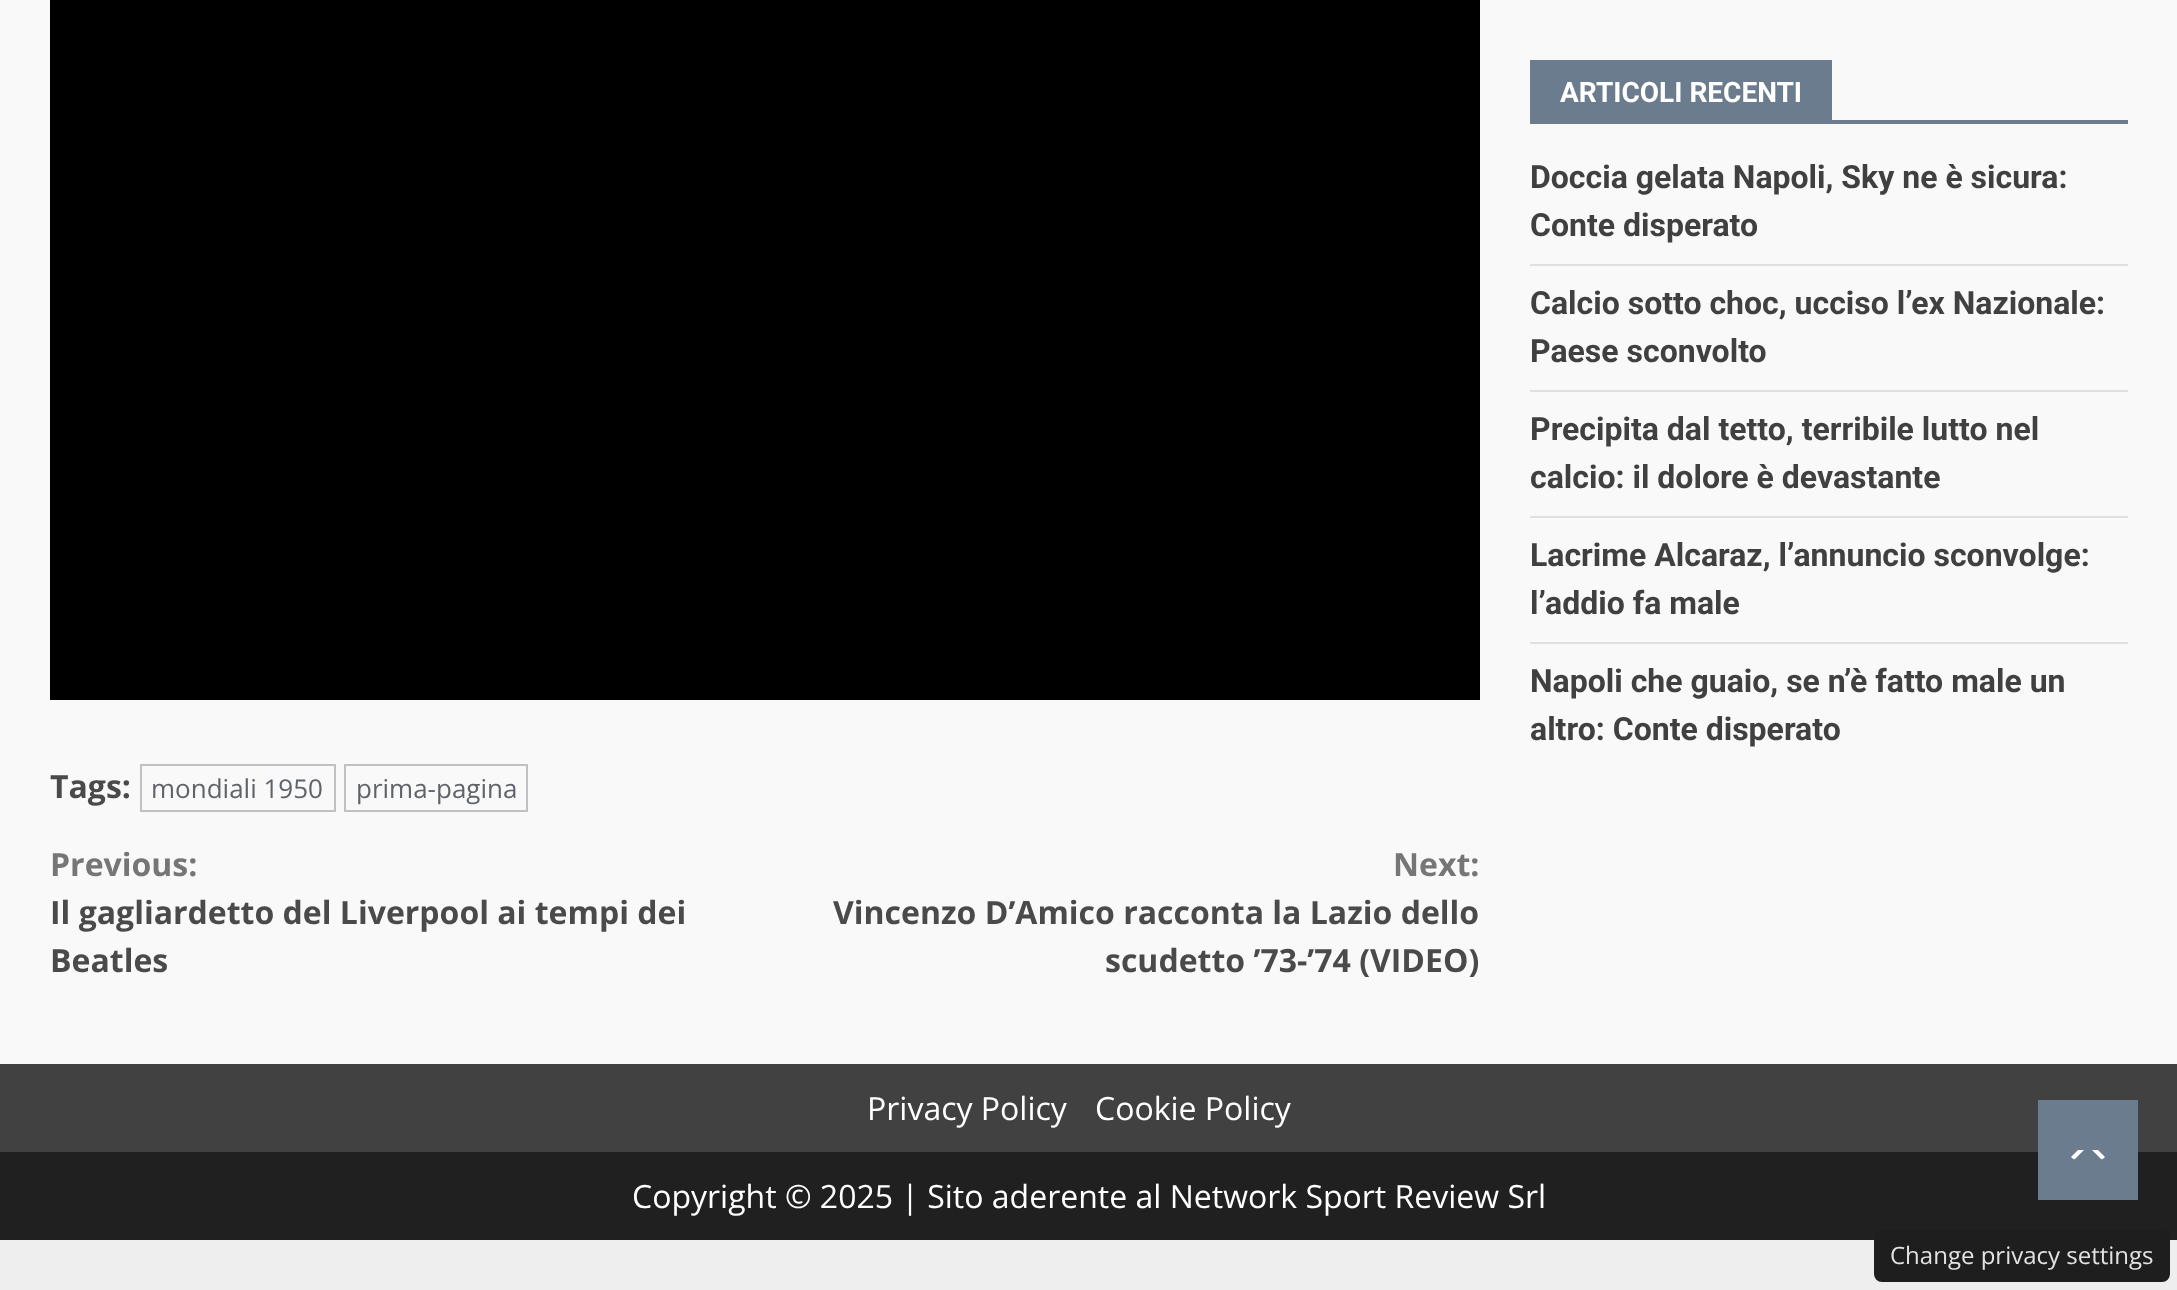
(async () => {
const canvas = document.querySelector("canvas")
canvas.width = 2177
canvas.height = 1290
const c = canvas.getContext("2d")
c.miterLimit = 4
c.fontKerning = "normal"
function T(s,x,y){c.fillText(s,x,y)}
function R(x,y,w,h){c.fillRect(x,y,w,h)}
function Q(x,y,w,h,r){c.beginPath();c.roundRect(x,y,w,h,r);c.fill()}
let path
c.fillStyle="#eee"
R(0,0,2177,1290)
c.fillStyle="#f9f9f9"
R(0,0,2177,1064)
c.fillStyle="#6b7c8e"
R(1530,120,598,4)
R(1530,60,302,60)
c.font="bold 28px Roboto"
c.fillStyle="#fff"
T("ARTICOLI RECENTI",1560,102)
c.fillStyle="#e0e0e0"
R(1530,264,598,2)
c.font="bold 32px Roboto"
c.fillStyle="#404040"
T("Doccia gelata Napoli, Sky ne è sicura:",1530,188)
T("Conte disperato",1530,236)
c.fillStyle="#e0e0e0"
R(1530,390,598,2)
c.fillStyle="#404040"
T("Calcio sotto choc, ucciso l’ex Nazionale:",1530,314)
T("Paese sconvolto",1530,362)
c.fillStyle="#e0e0e0"
R(1530,516,598,2)
c.fillStyle="#404040"
T("Precipita dal tetto, terribile lutto nel",1530,440)
T("calcio: il dolore è devastante",1530,488)
c.fillStyle="#e0e0e0"
R(1530,642,598,2)
c.fillStyle="#404040"
T("Lacrime Alcaraz, l’annuncio sconvolge:",1530,566)
T("l’addio fa male",1530,614)
T("Napoli che guaio, se n’è fatto male un",1530,692)
T("altro: Conte disperato",1530,740)
c.fillStyle="#000"
R(50,0,1430,700)
c.font="bold 32px Open Sans"
c.fillStyle="#4a4a4a"
T("Tags:",50,798)
c.strokeStyle="#bfc1c3"
c.lineWidth=2
c.strokeRect(141,765,194,46)
c.font="26px Open Sans"
c.fillStyle="#5f636a"
T("mondiali 1950",151,798)
c.strokeRect(345,765,182,46)
T("prima-pagina",356,798)
c.font="bold 32px Open Sans"
c.fillStyle="#767676"
T("Previous:",50,876)
c.fillStyle="#4a4a4a"
T("Il gagliardetto del Liverpool ai tempi dei",50,924)
T("Beatles",50,972)
c.fillStyle="#767676"
T("Next:",1393,876)
c.fillStyle="#4a4a4a"
T("Vincenzo D’Amico racconta la Lazio dello",833,924)
T("scudetto ’73-’74 (VIDEO)",1105,972)
c.fillStyle="#202020"
R(0,1152,2177,88)
c.fillStyle="#414141"
R(0,1064,2177,88)
c.font="32px Open Sans"
c.fillStyle="#fff"
T("Privacy Policy",867,1120)
T("Cookie Policy",1095,1120)
T("Copyright © 2025 | Sito aderente al Network Sport Review Srl",632,1208)
c.fillStyle="#6b7c8e"
R(2038,1100,100,100)
c.fillStyle="#fff"
path = new Path2D("M2078 1160h20c3 0 5.5-1 7-3l-7-7h-20l-7 7c1.5 2 4 3 7 3z")
c.fill(path)
c.fillStyle="#6b7c8e"
path = new Path2D("M2108 1166h-40l20-20z")
c.fill(path)
c.fillStyle="#1e1e1e"
Q(1874,1230,296,52,8)
c.font="24px Open Sans"
c.fillStyle="#e3e1e1"
T("Change privacy settings",1890,1264)
})()
